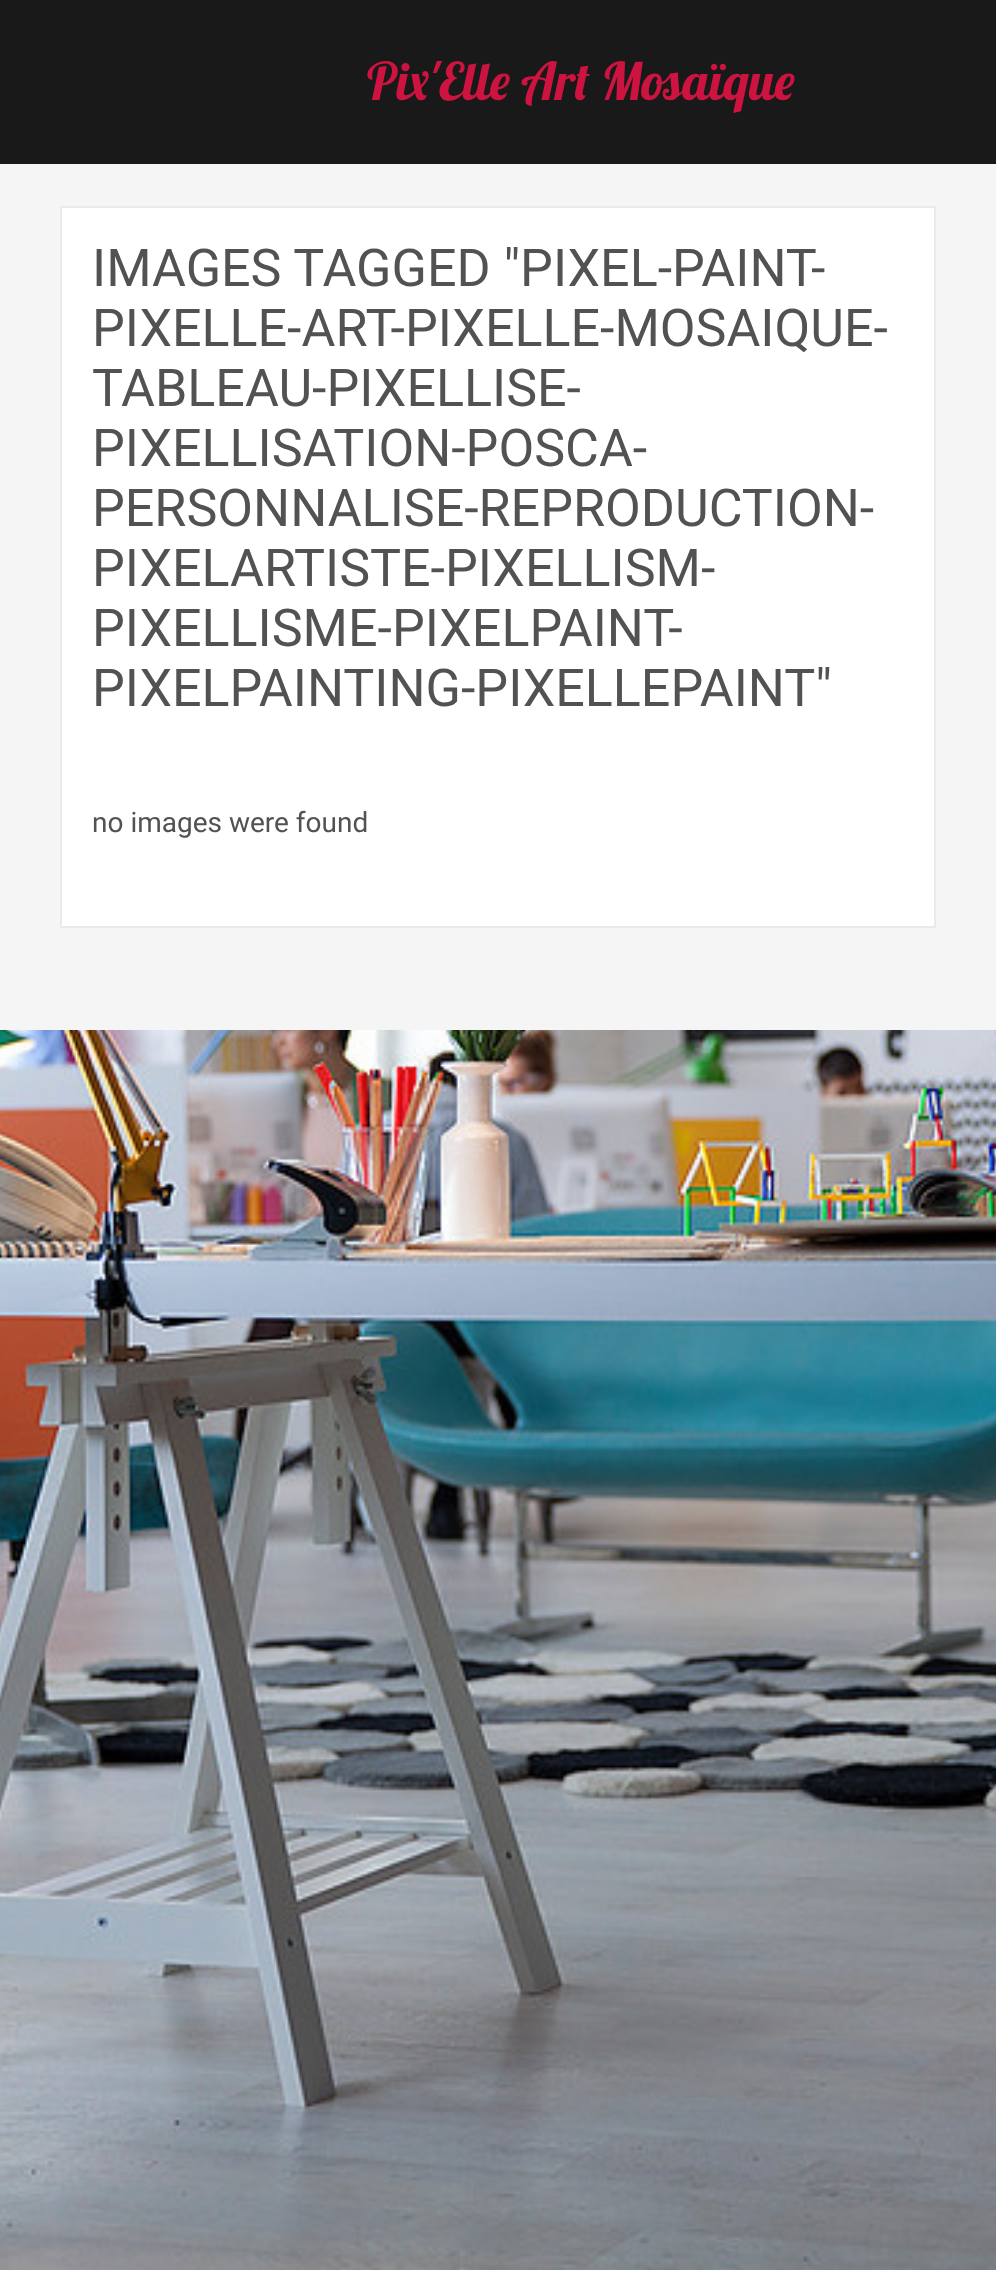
(async () => {
const canvas = document.querySelector("canvas")
canvas.width = 996
canvas.height = 2270
const c = canvas.getContext("2d")
c.miterLimit = 4
c.fontKerning = "normal"
function T(s,x,y){c.fillText(s,x,y)}
function R(x,y,w,h){c.fillRect(x,y,w,h)}
async function I(src,x,y,w,h){const img=new Image();img.src=src;await img.decode();c.drawImage(img,x,y,w,h)}
c.fillStyle="#fff"
R(0,0,996,2270)
await I("1.png",0,1030,996,1240)
c.fillStyle="#191919"
R(0,0,996,164)
c.font="52px Lobster"
c.fillStyle="#cd133f"
T("Pix'Elle Art Mosaïque",367,100)
c.fillStyle="#f5f5f5"
R(0,164,996,866)
c.fillStyle="#fff"
c.beginPath()
c.rect(61,207,874,720)
c.fill()
c.strokeStyle="#eaeaea"
c.lineWidth=2
c.stroke()
c.font="52px Roboto"
c.fillStyle="#525252"
T("IMAGES TAGGED \"PIXEL-PAINT-",92,286)
T("PIXELLE-ART-PIXELLE-MOSAIQUE-",92,346)
T("TABLEAU-PIXELLISE-",92,406)
T("PIXELLISATION-POSCA-",92,466)
T("PERSONNALISE-REPRODUCTION-",92,526)
T("PIXELARTISTE-PIXELLISM-",92,586)
T("PIXELLISME-PIXELPAINT-",92,646)
T("PIXELPAINTING-PIXELLEPAINT\"",92,706)
c.font="28px Roboto"
T("no images were found",92,832)
})()
